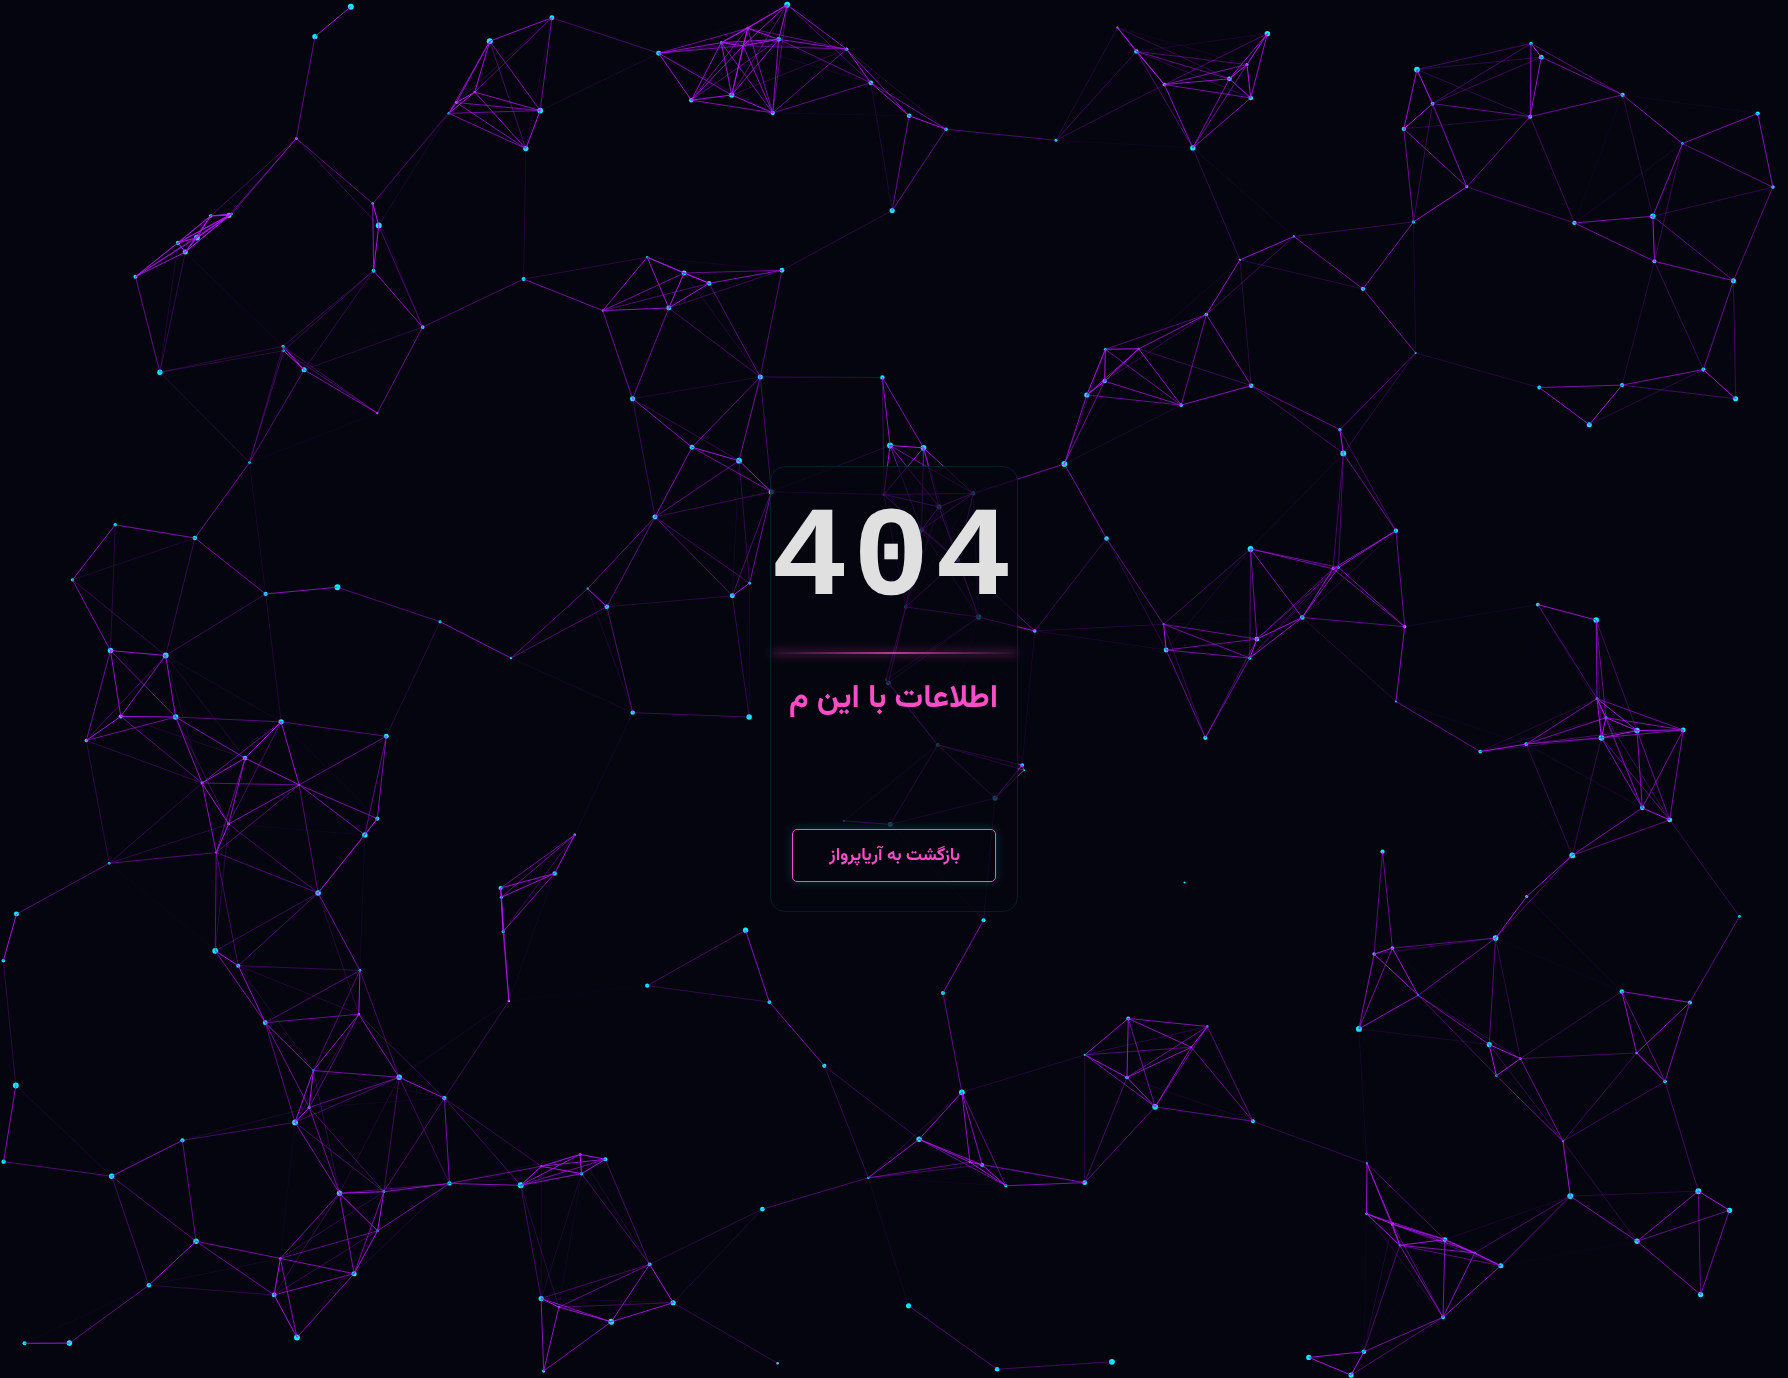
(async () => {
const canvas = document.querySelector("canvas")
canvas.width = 1788
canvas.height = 1378
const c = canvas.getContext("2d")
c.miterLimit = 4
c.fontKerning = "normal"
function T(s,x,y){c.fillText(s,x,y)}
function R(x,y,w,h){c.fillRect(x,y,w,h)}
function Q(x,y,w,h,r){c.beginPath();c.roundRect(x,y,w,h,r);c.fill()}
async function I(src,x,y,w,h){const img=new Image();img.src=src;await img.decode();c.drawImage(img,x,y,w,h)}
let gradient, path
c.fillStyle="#050510"
R(0,0,1788,1378)
await I("1.png",1,1,1774,1377)
c.fillStyle="#050510b3"
Q(770,466,248,446,15)
c.beginPath()
c.roundRect(770.5,466.5,247,445,14.5)
c.strokeStyle="#00f3ff1a"
c.stroke()
c.letterSpacing="5px"
c.font="bold 128px Liberation Mono"
c.fillStyle="#e0e0e0"
T("404",771,594)
c.fillStyle="#fb4cc7b3"
c.filter="blur(5px)"
c.beginPath()
c.rect(771,652,246,2)
c.fill()
c.filter="none"
gradient = c.createLinearGradient(771,653,1017,653)
gradient.addColorStop(0,"#fb4cc700")
gradient.addColorStop(.5,"#fb4cc7b3")
gradient.addColorStop(1,"#fb4cc700")
c.fillStyle = gradient
R(771,652,246,2)
c.letterSpacing="0px"
c.direction="rtl"
c.font="bold 32px Vazirmatn"
c.fillStyle="#fb4cc7"
T("اطلاعات با این م",998,707)
c.save()
path = new Path2D("M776 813h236v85h-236zm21 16h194c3 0 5 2 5 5v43c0 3-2 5-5 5h-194c-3 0-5-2-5-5v-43c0-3 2-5 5-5z")
c.clip(path,"evenodd")
c.fillStyle="#00f3ff33"
c.filter="blur(5px)"
c.beginPath()
c.roundRect(792,829,204,53,5)
c.fill()
c.filter="none"
c.restore()
c.beginPath()
c.roundRect(792.5,829.5,203,52,4.5)
c.strokeStyle="#fb4cc7"
c.stroke()
c.font="bold 17.5px Vazirmatn"
T("بازگشت به آریاپرواز",960,860)
})()
